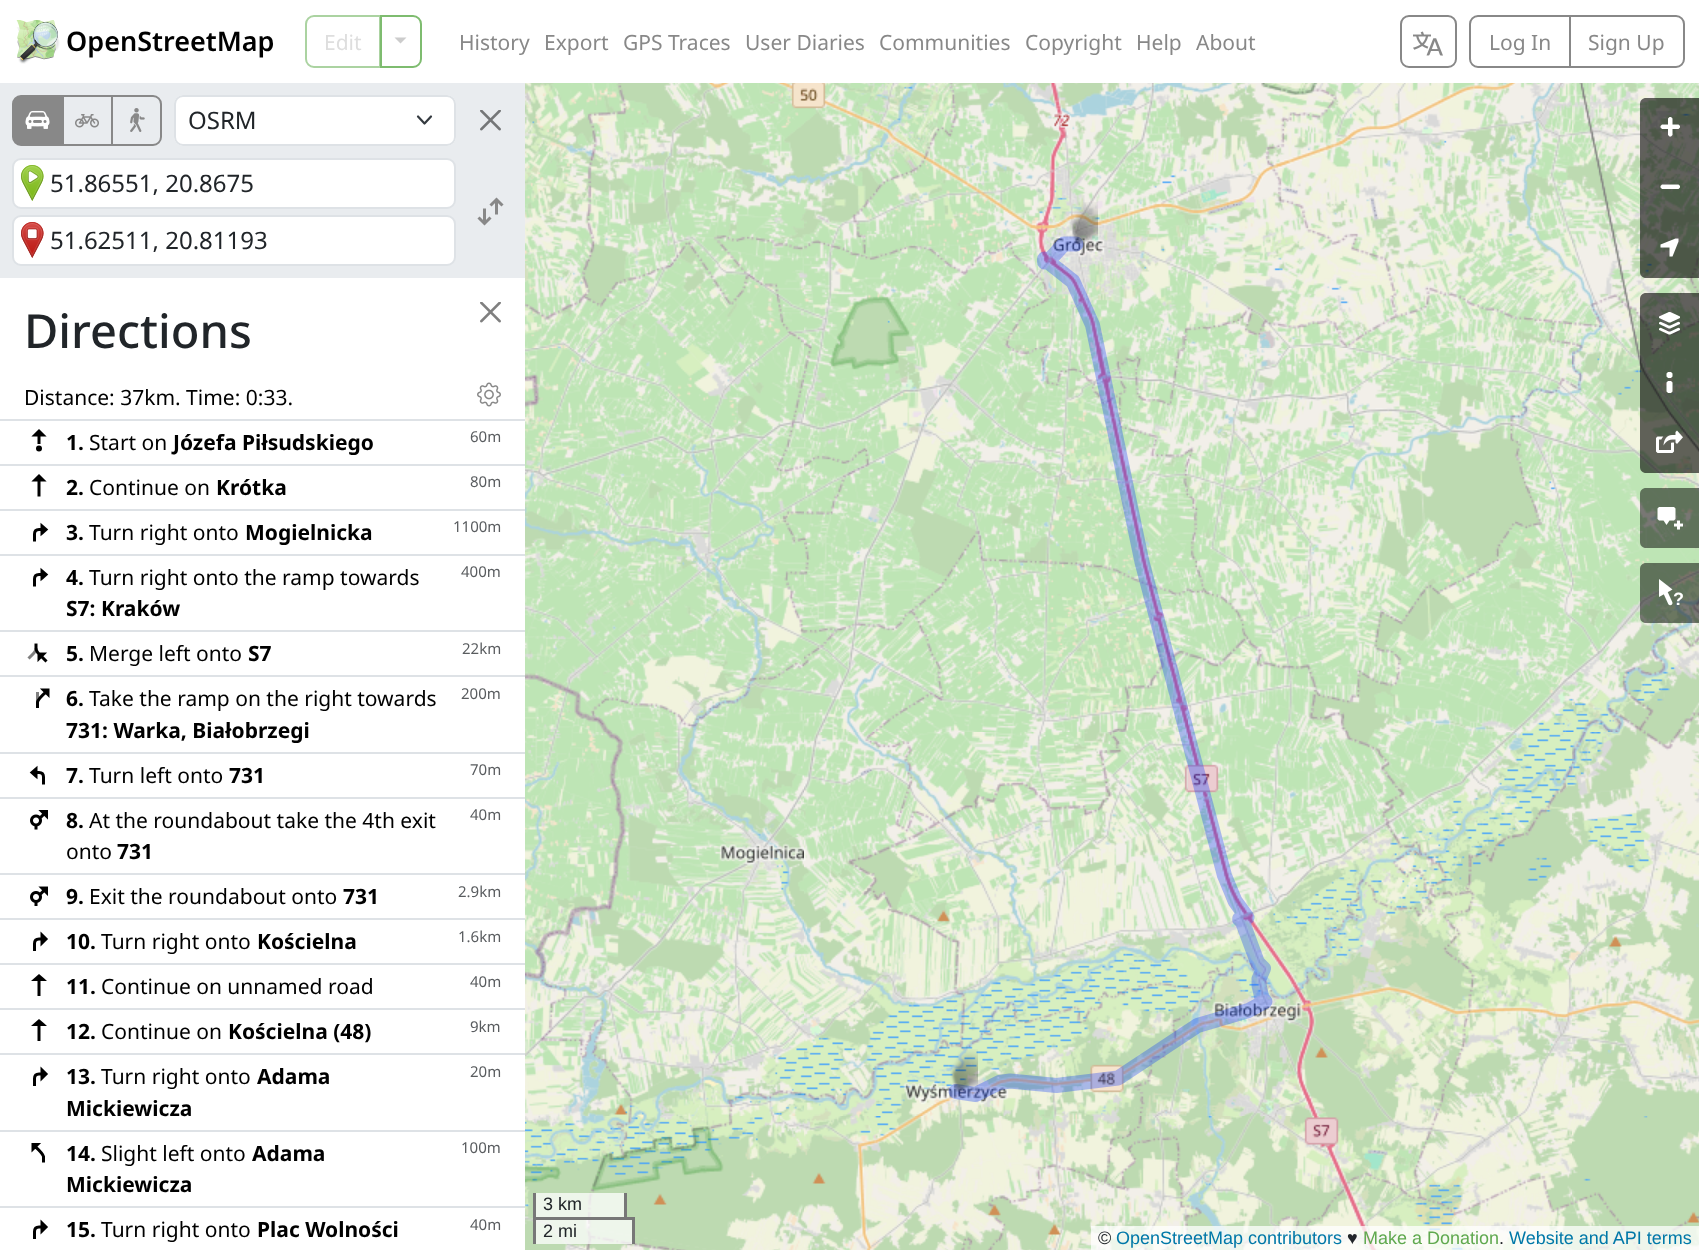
(async () => {
const canvas = document.querySelector("canvas")
canvas.width = 1699
canvas.height = 1250
const c = canvas.getContext("2d")
c.miterLimit = 4
c.fontKerning = "normal"
function T(s,x,y){c.fillText(s,x,y)}
function R(x,y,w,h){c.fillRect(x,y,w,h)}
function Q(x,y,w,h,r){c.beginPath();c.roundRect(x,y,w,h,r);c.fill()}
async function I(src,x,y,w,h){const img=new Image();img.src=src;await img.decode();c.drawImage(img,x,y,w,h)}
let path
c.fillStyle="#fff"
R(0,0,1699,1250)
await I("1.png",16,20,44,44)
c.font="600 27px Noto Sans"
c.fillStyle="#000"
T("OpenStreetMap",66,51)
c.beginPath()
c.roundRect(306,16,74,51,[8,0,0,8])
c.strokeStyle="#abd3a1"
c.lineWidth=2
c.stroke()
c.font="21px Noto Sans"
c.fillStyle="#dedede"
T("Edit",324,50)
c.beginPath()
c.roundRect(381,16,40,51,[0,8,8,0])
c.strokeStyle="#7ebc6f"
c.stroke()
c.fillStyle="#ccc"
path = new Path2D("M394.5 37.5h12l-6 6z")
c.fill(path)
c.fillStyle="#888"
T("History",459,50)
T("Export",544,50)
T("GPS Traces",623,50)
T("User Diaries",745,50)
T("Communities",879,50)
T("Copyright",1025,50)
T("Help",1136,50)
T("About",1196,50)
c.beginPath()
c.roundRect(1401,16,55,51,8)
c.strokeStyle="#888"
c.stroke()
await I("2.png",1413,31,30,25)
c.beginPath()
c.roundRect(1470,16,100,51,[8,0,0,8])
c.stroke()
T("Log In",1489,50)
c.beginPath()
c.roundRect(1570,16,114,51,[0,8,8,0])
c.stroke()
T("Sign Up",1588,50)
c.fillStyle="#e9ecef"
R(0,83,525,195)
c.strokeRect(63,96,49,49)
c.fillStyle="#888"
c.beginPath()
c.roundRect(13,96,49,49,[8,0,0,8])
c.fill()
c.stroke()
await I("3.png",25,110,25,19)
await I("4.png",75,114,24,14)
c.beginPath()
c.roundRect(112,96,49,49,[0,8,8,0])
c.stroke()
await I("5.png",130,108,15,24)
c.fillStyle="#fff"
Q(174,95,282,51,9)
path = new Path2D("M418 116.5l6.5 7l6.5-7")
c.strokeStyle="#343a40"
c.lineWidth=2.2
c.lineCap="round"
c.lineJoin="round"
c.stroke(path)
c.beginPath()
c.roundRect(175,96,280,49,8)
c.strokeStyle="#dee2e6"
c.lineWidth=2
c.lineJoin="miter"
c.stroke()
c.font="24px Noto Sans"
c.fillStyle="#212529"
T("OSRM",188,129)
await I("6.png",480,110,21,21)
c.fillStyle="#fff"
c.beginPath()
c.roundRect(13,159,442,49,8)
c.fill()
c.stroke()
await I("7.png",21,165,23,36)
c.fillStyle="#212529"
T("51.86551, 20.8675",50,192)
c.fillStyle="#fff"
c.beginPath()
c.roundRect(13,216,442,49,8)
c.fill()
c.stroke()
await I("8.png",21,222,23,36)
c.fillStyle="#212529"
T("51.62511, 20.81193",50,249)
path = new Path2D("M484.5 208.5v15m-6-6l6 6l6-6m6-3v-15m6 6l-6-6l-6 6")
c.strokeStyle="#888"
c.lineWidth=3
c.lineCap="butt"
c.stroke(path)
await I("9.png",480,302,21,21)
c.font="500 47px Noto Sans"
T("Directions",24,348)
c.fillStyle="#dee2e6"
R(0,419,525,2)
await I("10.png",477,382,24,25)
c.font="21px Noto Sans"
c.fillStyle="#000"
T("Distance: 37km. Time: 0:33.",24,405)
path = new Path2D("M39 450c2 0 2-3 0-3c-2 0-2 3 0 3m0-6v-12m4 3l-4-4l-4 4z")
c.strokeStyle="#000"
c.stroke(path)
c.font="bold 21px Noto Sans"
T("1.",66,450)
c.font="21px Noto Sans"
T("Start on",89,450)
c.font="bold 21px Noto Sans"
T("Józefa Piłsudskiego",173,450)
c.fillStyle="#dee2e6"
R(0,464,525,2)
c.font="15px Noto Sans"
c.fillStyle="#595c5f"
T("60m",470,442)
path = new Path2D("M39 496.5v-19.5m4 3l-4-4l-4 4z")
c.stroke(path)
c.font="bold 21px Noto Sans"
c.fillStyle="#000"
T("2.",66,495)
c.font="21px Noto Sans"
T("Continue on",89,495)
c.font="bold 21px Noto Sans"
T("Krótka",216,495)
c.fillStyle="#dee2e6"
R(0,509,525,2)
c.font="15px Noto Sans"
c.fillStyle="#595c5f"
T("80m",470,487)
path = new Path2D("M34.5 541.5v-7.5c0-3 1.5-4.5 4.5-4.5h6m-3 3.5l4-3.5l-4-3.5z")
c.stroke(path)
c.font="bold 21px Noto Sans"
c.fillStyle="#000"
T("3.",66,540)
c.font="21px Noto Sans"
T("Turn right onto",89,540)
c.font="bold 21px Noto Sans"
T("Mogielnicka",245,540)
c.fillStyle="#dee2e6"
R(0,554,525,2)
c.font="15px Noto Sans"
c.fillStyle="#595c5f"
T("1100m",453,532)
path = new Path2D("M34.5 586.5v-7.5c0-3 1.5-4.5 4.5-4.5h6m-3 3.5l4-3.5l-4-3.5z")
c.stroke(path)
c.font="bold 21px Noto Sans"
c.fillStyle="#000"
T("4.",66,585)
c.font="21px Noto Sans"
T("Turn right onto the ramp towards",89,585)
c.font="bold 21px Noto Sans"
T("S7: Kraków",66,616)
c.fillStyle="#dee2e6"
R(0,630,525,2)
c.font="15px Noto Sans"
c.fillStyle="#595c5f"
T("400m",461,577)
await I("11.png",27,643,21,20)
c.font="bold 21px Noto Sans"
c.fillStyle="#000"
T("5.",66,661)
c.font="21px Noto Sans"
T("Merge left onto",89,661)
c.font="bold 21px Noto Sans"
T("S7",248,661)
c.fillStyle="#dee2e6"
R(0,675,525,2)
c.font="15px Noto Sans"
c.fillStyle="#595c5f"
T("22km",462,654)
c.fillStyle="#808080"
R(36,692,3,12)
path = new Path2D("M37.5 708v-6c1-4 7.5-9 10.5-12m0 0h-4.5l4.5 4.5z")
c.stroke(path)
c.font="bold 21px Noto Sans"
c.fillStyle="#000"
T("6.",66,706)
c.font="21px Noto Sans"
T("Take the ramp on the right towards",89,706)
c.font="bold 21px Noto Sans"
T("731: Warka, Białobrzegi",66,738)
c.fillStyle="#dee2e6"
R(0,752,525,2)
c.font="15px Noto Sans"
c.fillStyle="#595c5f"
T("200m",461,699)
path = new Path2D("M43.5 784.5v-7.5c0-3-1.5-4.5-4.5-4.5h-6m3 3.5l-4-3.5l4-3.5z")
c.stroke(path)
c.font="bold 21px Noto Sans"
c.fillStyle="#000"
T("7.",66,783)
c.font="21px Noto Sans"
T("Turn left onto",89,783)
c.font="bold 21px Noto Sans"
T("731",229,783)
c.fillStyle="#dee2e6"
R(0,797,525,2)
c.font="15px Noto Sans"
c.fillStyle="#595c5f"
T("70m",470,775)
await I("12.png",30,810,18,20)
c.font="bold 21px Noto Sans"
c.fillStyle="#000"
T("8.",66,828)
c.font="21px Noto Sans"
T("At the roundabout take the 4th exit",89,828)
T("onto",66,859)
c.font="bold 21px Noto Sans"
T("731",117,859)
c.fillStyle="#dee2e6"
R(0,873,525,2)
c.font="15px Noto Sans"
c.fillStyle="#595c5f"
T("40m",470,820)
await I("13.png",30,886,18,20)
c.font="bold 21px Noto Sans"
c.fillStyle="#000"
T("9.",66,904)
c.font="21px Noto Sans"
T("Exit the roundabout onto",89,904)
c.font="bold 21px Noto Sans"
T("731",343,904)
c.fillStyle="#dee2e6"
R(0,918,525,2)
c.font="15px Noto Sans"
c.fillStyle="#595c5f"
T("2.9km",458,897)
path = new Path2D("M34.5 951v-7.5c0-3 1.5-4.5 4.5-4.5h6m-3 4l4-4l-4-4z")
c.stroke(path)
c.font="bold 21px Noto Sans"
c.fillStyle="#000"
T("10.",66,949)
c.font="21px Noto Sans"
T("Turn right onto",101,949)
c.font="bold 21px Noto Sans"
T("Kościelna",257,949)
c.fillStyle="#dee2e6"
R(0,963,525,2)
c.font="15px Noto Sans"
c.fillStyle="#595c5f"
T("1.6km",458,942)
path = new Path2D("M39 996v-19.5m4 3l-4-3.5l-4 3.5z")
c.stroke(path)
c.font="bold 21px Noto Sans"
c.fillStyle="#000"
T("11.",66,994)
c.font="21px Noto Sans"
T("Continue on unnamed road",101,994)
c.fillStyle="#dee2e6"
R(0,1008,525,2)
c.font="15px Noto Sans"
c.fillStyle="#595c5f"
T("40m",470,987)
path = new Path2D("M39 1041v-19.5m4 3l-4-3.5l-4 3.5z")
c.stroke(path)
c.font="bold 21px Noto Sans"
c.fillStyle="#000"
T("12.",66,1039)
c.font="21px Noto Sans"
T("Continue on",101,1039)
c.font="bold 21px Noto Sans"
T("Kościelna (48)",228,1039)
c.fillStyle="#dee2e6"
R(0,1053,525,2)
c.font="15px Noto Sans"
c.fillStyle="#595c5f"
T("9km",470,1032)
path = new Path2D("M34.5 1086v-7.5c0-3 1.5-4.5 4.5-4.5h6m-3 4l4-4l-4-4z")
c.stroke(path)
c.font="bold 21px Noto Sans"
c.fillStyle="#000"
T("13.",66,1084)
c.font="21px Noto Sans"
T("Turn right onto",101,1084)
c.font="bold 21px Noto Sans"
T("Adama",257,1084)
T("Mickiewicza",66,1116)
c.fillStyle="#dee2e6"
R(0,1130,525,2)
c.font="15px Noto Sans"
c.fillStyle="#595c5f"
T("20m",470,1077)
path = new Path2D("M43.5 1162.5v-6c-1-4-7.5-9-10.5-12m0 0h4.5l-4.5 4.5z")
c.stroke(path)
c.font="bold 21px Noto Sans"
c.fillStyle="#000"
T("14.",66,1161)
c.font="21px Noto Sans"
T("Slight left onto",101,1161)
c.font="bold 21px Noto Sans"
T("Adama",252,1161)
T("Mickiewicza",66,1192)
c.fillStyle="#dee2e6"
R(0,1206,525,2)
c.font="15px Noto Sans"
c.fillStyle="#595c5f"
T("100m",461,1153)
path = new Path2D("M34.5 1239v-7.5c0-3 1.5-4.5 4.5-4.5h6m-3 4l4-4l-4-4z")
c.stroke(path)
c.font="bold 21px Noto Sans"
c.fillStyle="#000"
T("15.",66,1237)
c.font="21px Noto Sans"
T("Turn right onto",101,1237)
c.font="bold 21px Noto Sans"
T("Plac Wolności",257,1237)
c.font="15px Noto Sans"
c.fillStyle="#595c5f"
T("40m",470,1230)
await I("14.png",525,83,279,265)
await I("15.png",804,83,384,265)
await I("16.png",1188,83,384,265)
await I("17.png",1572,83,127,265)
await I("18.png",525,348,279,384)
await I("19.png",804,348,384,384)
await I("20.png",1188,348,384,384)
await I("21.png",1572,348,127,384)
await I("22.png",525,732,279,384)
await I("23.png",804,732,384,384)
await I("24.png",1188,732,384,384)
await I("25.png",1572,732,127,384)
await I("26.png",525,1116,279,134)
await I("27.png",804,1116,384,134)
await I("28.png",1188,1116,384,134)
await I("29.png",1572,1116,127,134)
path = new Path2D("M1076 244h-12l-16.5 18h-3v-3l28.5 22.5l19.5 43.5l49.5 237l82.5 313.5l10.5 25.5l12 16.5l-7.5 1.5l3 3l15 40.5l6 6l-4.5 10.5v6l3 13.5l3 3l-16.5 9l-51 15l-79.5 52.5l-61.5 7.5l-46.5-4.5l-10.5 1.5l-24 12l-19.5-3")
c.strokeStyle="#0033ff4d"
c.lineWidth=15
c.lineCap="round"
c.lineJoin="round"
c.stroke(path)
await I("30.png",1070,202,28,42)
await I("31.png",950,1049,28,43)
c.fillStyle="#00000099"
path = new Path2D("M1646 98h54v60h-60v-54c0-3.5 2.5-6 6-6z")
c.fill(path)
await I("32.png",1660,117,20,20)
R(1640,158,59,60)
await I("33.png",1660,184,20,5)
path = new Path2D("M1640 218h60v60h-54c-3.5 0-6-2.5-6-6z")
c.fill(path)
await I("34.png",1660,238,19,19)
path = new Path2D("M1646 293h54v60h-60v-54c0-3.5 2.5-6 6-6z")
c.fill(path)
await I("35.png",1659,312,21,23)
R(1640,353,59,60)
await I("36.png",1666,372,7,21)
path = new Path2D("M1640 413h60v60h-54c-3.5 0-6-2.5-6-6z")
c.fill(path)
await I("37.png",1656,430,27,23)
c.fillStyle="#00000080"
path = new Path2D("M1646 488h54v60h-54c-3.5 0-6-2.5-6-6v-48c0-3.5 2.5-6 6-6z")
c.fill(path)
await I("38.png",1657,507,26,23)
path = new Path2D("M1646 563h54v60h-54c-3.5 0-6-2.5-6-6v-48c0-3.5 2.5-6 6-6z")
c.fill(path)
await I("39.png",1659,579,14,27)
c.font="bold 18px Liberation Sans"
c.fillStyle="#fff"
T("?",1673,605)
c.fillStyle="#ffffffbf"
R(536,1193,88,24)
c.fillStyle="#777"
R(624,1193,3,27)
R(533,1193,3,27)
c.font="18px Liberation Sans"
c.fillStyle="#212529"
T("3 km",543,1210)
c.fillStyle="#ffffffbf"
R(536,1220,96,24)
c.fillStyle="#777"
R(533,1217,102,3)
R(632,1217,3,27)
R(533,1217,3,27)
c.fillStyle="#212529"
T("2 mi",543,1237)
c.fillStyle="#ffffffbf"
R(1091,1226,608,24)
c.fillStyle="#212529"
T("©",1098,1244)
c.fillStyle="#0078a8"
T("OpenStreetMap contributors",1116,1244)
c.fillStyle="#212529"
T("♥",1347,1244)
c.fillStyle="#60a94f"
T("Make a Donation",1363,1244)
c.fillStyle="#212529"
T(".",1499,1244)
c.fillStyle="#0078a8"
T("Website and API terms",1509,1244)
})()
